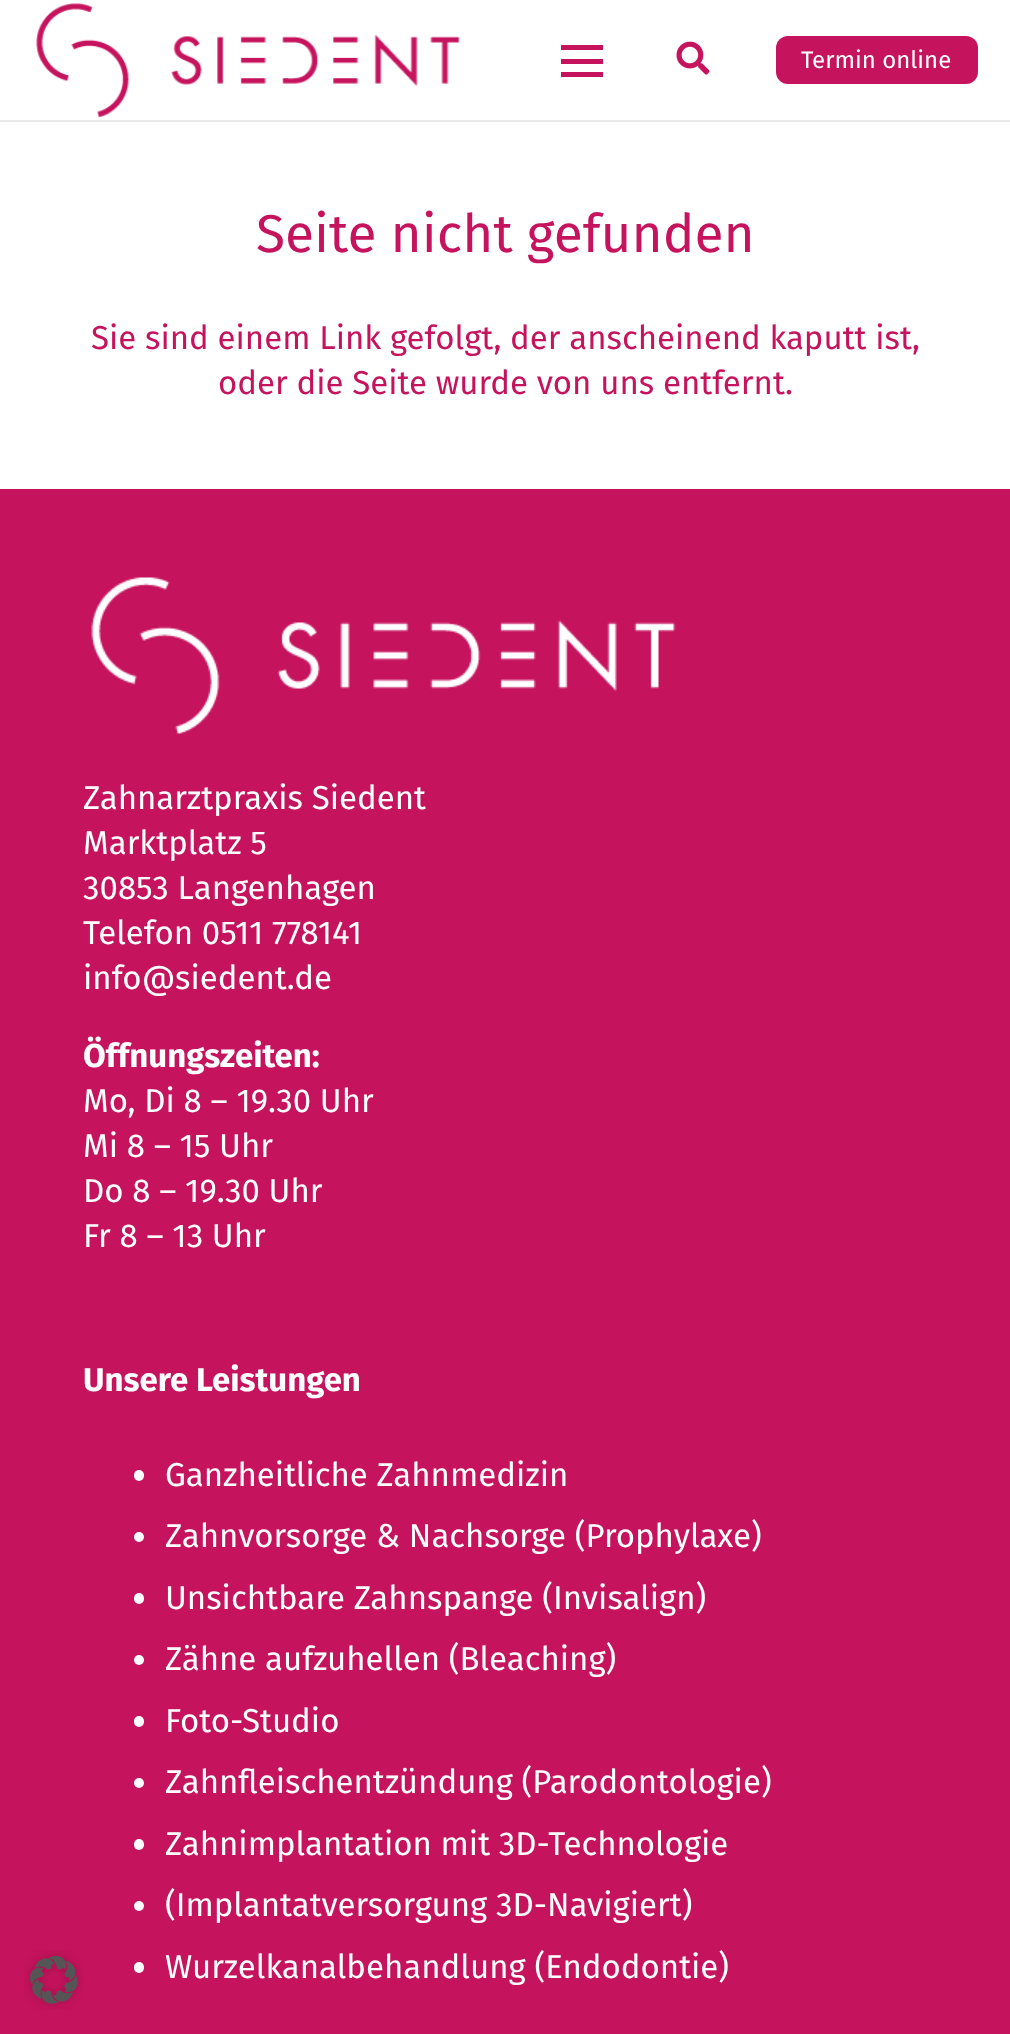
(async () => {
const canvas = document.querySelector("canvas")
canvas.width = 1010
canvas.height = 2034
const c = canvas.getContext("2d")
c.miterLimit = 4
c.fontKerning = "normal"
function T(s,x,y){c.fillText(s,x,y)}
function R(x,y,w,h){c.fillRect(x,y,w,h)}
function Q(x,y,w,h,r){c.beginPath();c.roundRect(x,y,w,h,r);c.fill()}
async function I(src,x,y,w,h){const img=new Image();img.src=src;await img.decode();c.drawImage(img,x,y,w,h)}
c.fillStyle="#fff"
R(0,0,1010,2034)
c.fillStyle="#ebebeb"
R(0,120,1010,2)
await I("1.png",36,3,424,115)
c.fillStyle="#c6135d"
R(561,59,42,5)
R(561,45,42,5)
R(561,72,42,5)
await I("2.png",676,41,34,34)
Q(776,36,202,48,12)
c.font="24px Fira Sans"
c.fillStyle="#fff"
T("Termin online",801,68)
c.font="53.25px Fira Sans"
c.fillStyle="#c6135d"
T("Seite nicht gefunden",256,252)
c.font="33px Fira Sans"
T("Sie sind einem Link gefolgt, der anscheinend kaputt ist,",91,349)
T("oder die Seite wurde von uns entfernt.",218,394)
R(0,489,1010,1545)
await I("3.png",24,1950,60,60)
await I("4.png",91,577,585,157)
c.fillStyle="#fff"
T("Zahnarztpraxis Siedent",83,809)
T("Marktplatz 5",83,854)
T("30853 Langenhagen",83,899)
T("Telefon 0511 778141",83,944)
T("info@siedent.de",83,989)
c.font="bold 33px Fira Sans"
T("Öffnungszeiten:",83,1067)
c.font="33px Fira Sans"
T("Mo, Di 8 – 19.30 Uhr",83,1112)
T("Mi 8 – 15 Uhr",83,1157)
T("Do 8 – 19.30 Uhr",83,1202)
T("Fr 8 – 13 Uhr",83,1247)
c.font="bold 33px Fira Sans"
T("Unsere Leistungen",83,1391)
Q(134,1470,10,11,5)
c.font="33px Fira Sans"
T("Ganzheitliche Zahnmedizin",165,1486)
c.beginPath()
c.arc(139,1537,5,0,7)
c.fill()
T("Zahnvorsorge & Nachsorge (Prophylaxe)",165,1547)
Q(134,1593,10,11,5)
T("Unsichtbare Zahnspange (Invisalign)",165,1609)
c.beginPath()
c.arc(139,1660,5,0,7)
c.fill()
T("Zähne aufzuhellen (Bleaching)",165,1670)
Q(134,1716,10,11,5)
T("Foto-Studio",165,1732)
c.beginPath()
c.arc(139,1783,5,0,7)
c.fill()
T("Zahnfleischentzündung (Parodontologie)",165,1793)
Q(134,1839,10,11,5)
T("Zahnimplantation mit 3D-Technologie",165,1855)
c.beginPath()
c.arc(139,1906,5,0,7)
c.fill()
T("(Implantatversorgung 3D-Navigiert)",165,1916)
Q(134,1962,10,11,5)
T("Wurzelkanalbehandlung (Endodontie)",165,1978)
})()
